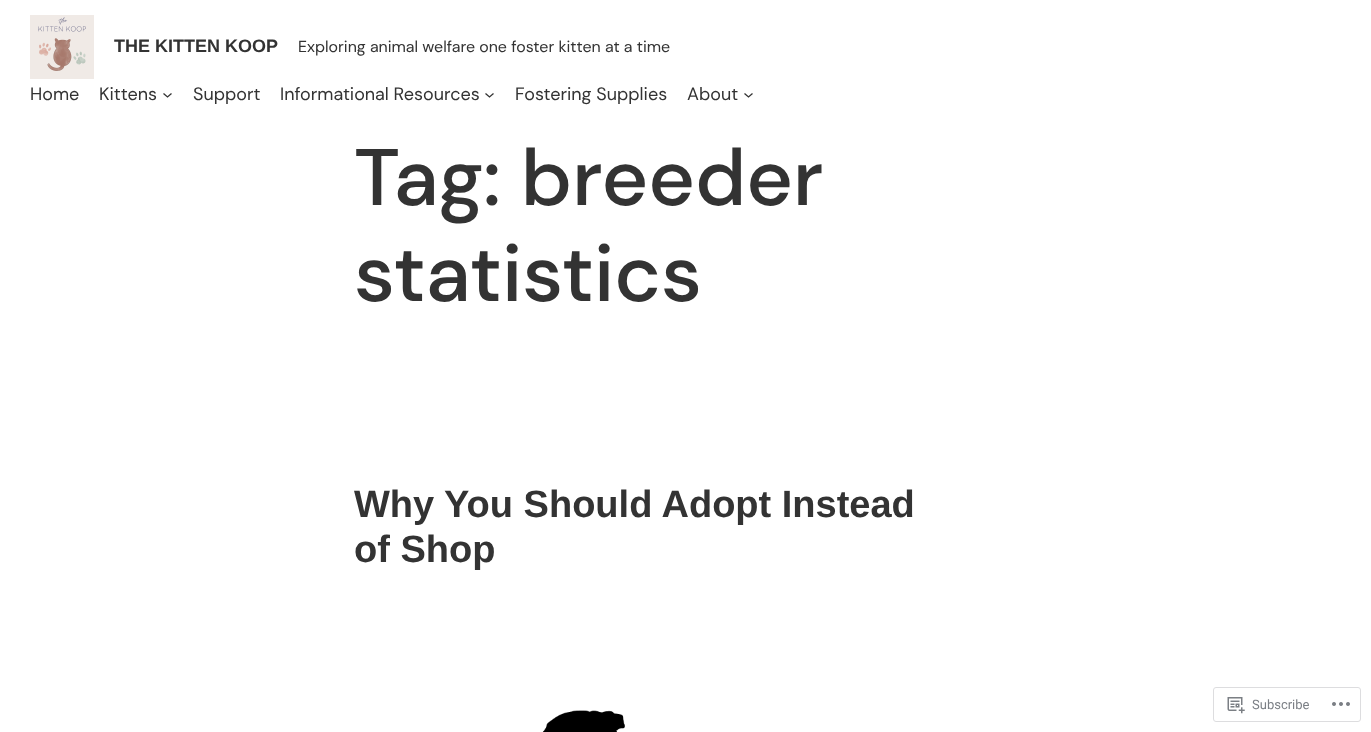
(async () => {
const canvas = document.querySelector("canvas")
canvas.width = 1371
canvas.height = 732
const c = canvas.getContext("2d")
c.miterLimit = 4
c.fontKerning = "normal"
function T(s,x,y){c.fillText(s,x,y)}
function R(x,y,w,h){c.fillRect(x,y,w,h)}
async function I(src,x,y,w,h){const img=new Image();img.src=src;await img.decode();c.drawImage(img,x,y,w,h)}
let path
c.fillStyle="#fff"
R(0,0,1371,732)
await I("1.png",30,15,64,64)
c.font="bold 18px Liberation Sans"
c.fillStyle="#333"
T("THE KITTEN KOOP",114,52)
c.font="16px DM Sans"
T("Exploring animal welfare one foster kitten at a time",298,52)
c.font="18px DM Sans"
T("Home",30,100)
T("Kittens",99,100)
path = new Path2D("M163.5 93.5l4 3.5l4-3.5")
c.strokeStyle="#333"
c.lineWidth=1.3
c.stroke(path)
T("Support",193,100)
T("Informational Resources",280,100)
path = new Path2D("M485.5 93.5l4 3.5l4-3.5")
c.stroke(path)
T("Fostering Supplies",515,100)
T("About",687,100)
path = new Path2D("M744.5 93.5l4 3.5l4-3.5")
c.stroke(path)
c.font="500 80px DM Sans"
T("Tag: breeder",354,205)
T("statistics",354,301)
c.font="bold 38px Liberation Sans"
T("Why You Should Adopt Instead",354,517)
T("of Shop",354,562)
await I("2.png",542,710,83,22)
c.beginPath()
c.roundRect(1213.5,687.5,147,34,2.5)
c.strokeStyle="#dddddf"
c.lineWidth=1
c.stroke()
await I("3.png",1227,697,18,17)
c.font="13px Roboto"
c.fillStyle="#7b7f85"
T("Subscribe",1252,709)
await I("4.png",1332,702,18,4)
})()
